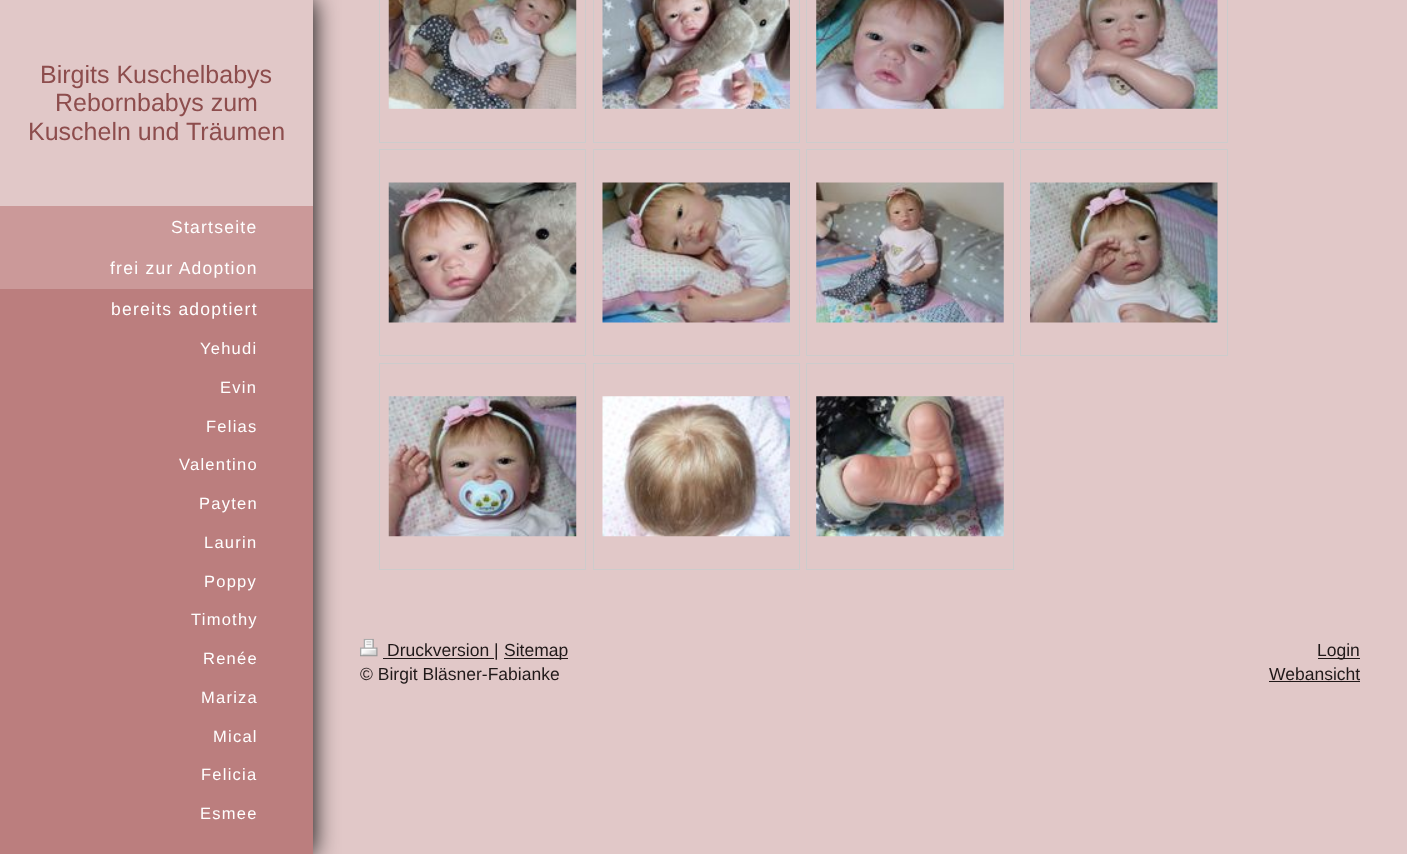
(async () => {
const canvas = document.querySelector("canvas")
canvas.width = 1407
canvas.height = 854
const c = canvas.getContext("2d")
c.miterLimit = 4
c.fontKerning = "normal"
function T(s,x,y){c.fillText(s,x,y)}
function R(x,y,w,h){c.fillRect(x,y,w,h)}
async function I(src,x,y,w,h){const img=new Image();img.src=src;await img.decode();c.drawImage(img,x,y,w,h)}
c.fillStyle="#e1c8c8"
R(0,0,1407,854)
c.fillStyle="#000"
c.filter="blur(12.5px)"
c.beginPath()
c.rect(0,0,313,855)
c.fill()
c.filter="none"
c.fillStyle="#cb9999"
R(0,206,313,83)
c.fillStyle="#e1c8c8"
R(0,0,313,206)
c.font="25px Liberation Sans"
c.fillStyle="#8d4d4d"
T("Birgits Kuschelbabys",40,83)
T("Rebornbabys zum",55,111)
T("Kuscheln und Träumen",28,140)
c.letterSpacing="1.25px"
c.font="17.5px Liberation Sans"
c.fillStyle="#fff"
T("Startseite",171,233)
T("frei zur Adoption",110,274)
c.fillStyle="#bb7e7e"
R(0,289,313,565)
c.fillStyle="#fff"
T("bereits adoptiert",111,315)
c.font="16.5px Liberation Sans"
T("Yehudi",200,354)
T("Evin",220,393)
T("Felias",206,432)
T("Valentino",179,470)
T("Payten",199,509)
T("Laurin",204,548)
T("Poppy",204,587)
T("Timothy",191,625)
T("Renée",203,664)
T("Mariza",201,703)
T("Mical",213,742)
T("Felicia",201,780)
T("Esmee",200,819)
c.strokeStyle="#ccc"
c.strokeRect(379.5,-.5,206,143)
await I("1.png",388,0,189,109)
c.strokeRect(593.5,-.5,206,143)
await I("2.png",602,0,188,109)
c.strokeRect(806.5,-.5,207,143)
await I("3.png",816,0,188,109)
c.strokeRect(1020.5,-.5,207,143)
await I("4.png",1030,0,188,109)
c.strokeRect(379.5,149.5,206,206)
await I("5.png",388,182,189,141)
c.strokeRect(593.5,149.5,206,206)
await I("6.png",602,182,188,141)
c.strokeRect(806.5,149.5,207,206)
await I("7.png",816,182,188,141)
c.strokeRect(1020.5,149.5,207,206)
await I("8.png",1030,182,188,141)
c.strokeRect(379.5,363.5,206,206)
await I("9.png",388,396,189,141)
c.strokeRect(593.5,363.5,206,206)
await I("10.png",602,396,188,141)
c.strokeRect(806.5,363.5,207,206)
await I("11.png",816,396,188,141)
await I("12.png",360,638,18,19)
c.fillStyle="#201919"
R(383,658,111,1)
c.letterSpacing="0px"
c.font="17.5px Liberation Sans"
T("Druckversion |",387,656)
R(504,658,64,1)
T("Sitemap",504,656)
T("© Birgit Bläsner-Fabianke",360,680)
R(1318,658,42,1)
T("Login",1317,656)
T("Webansicht",1269,680)
R(1269,681,91,1)
})()
